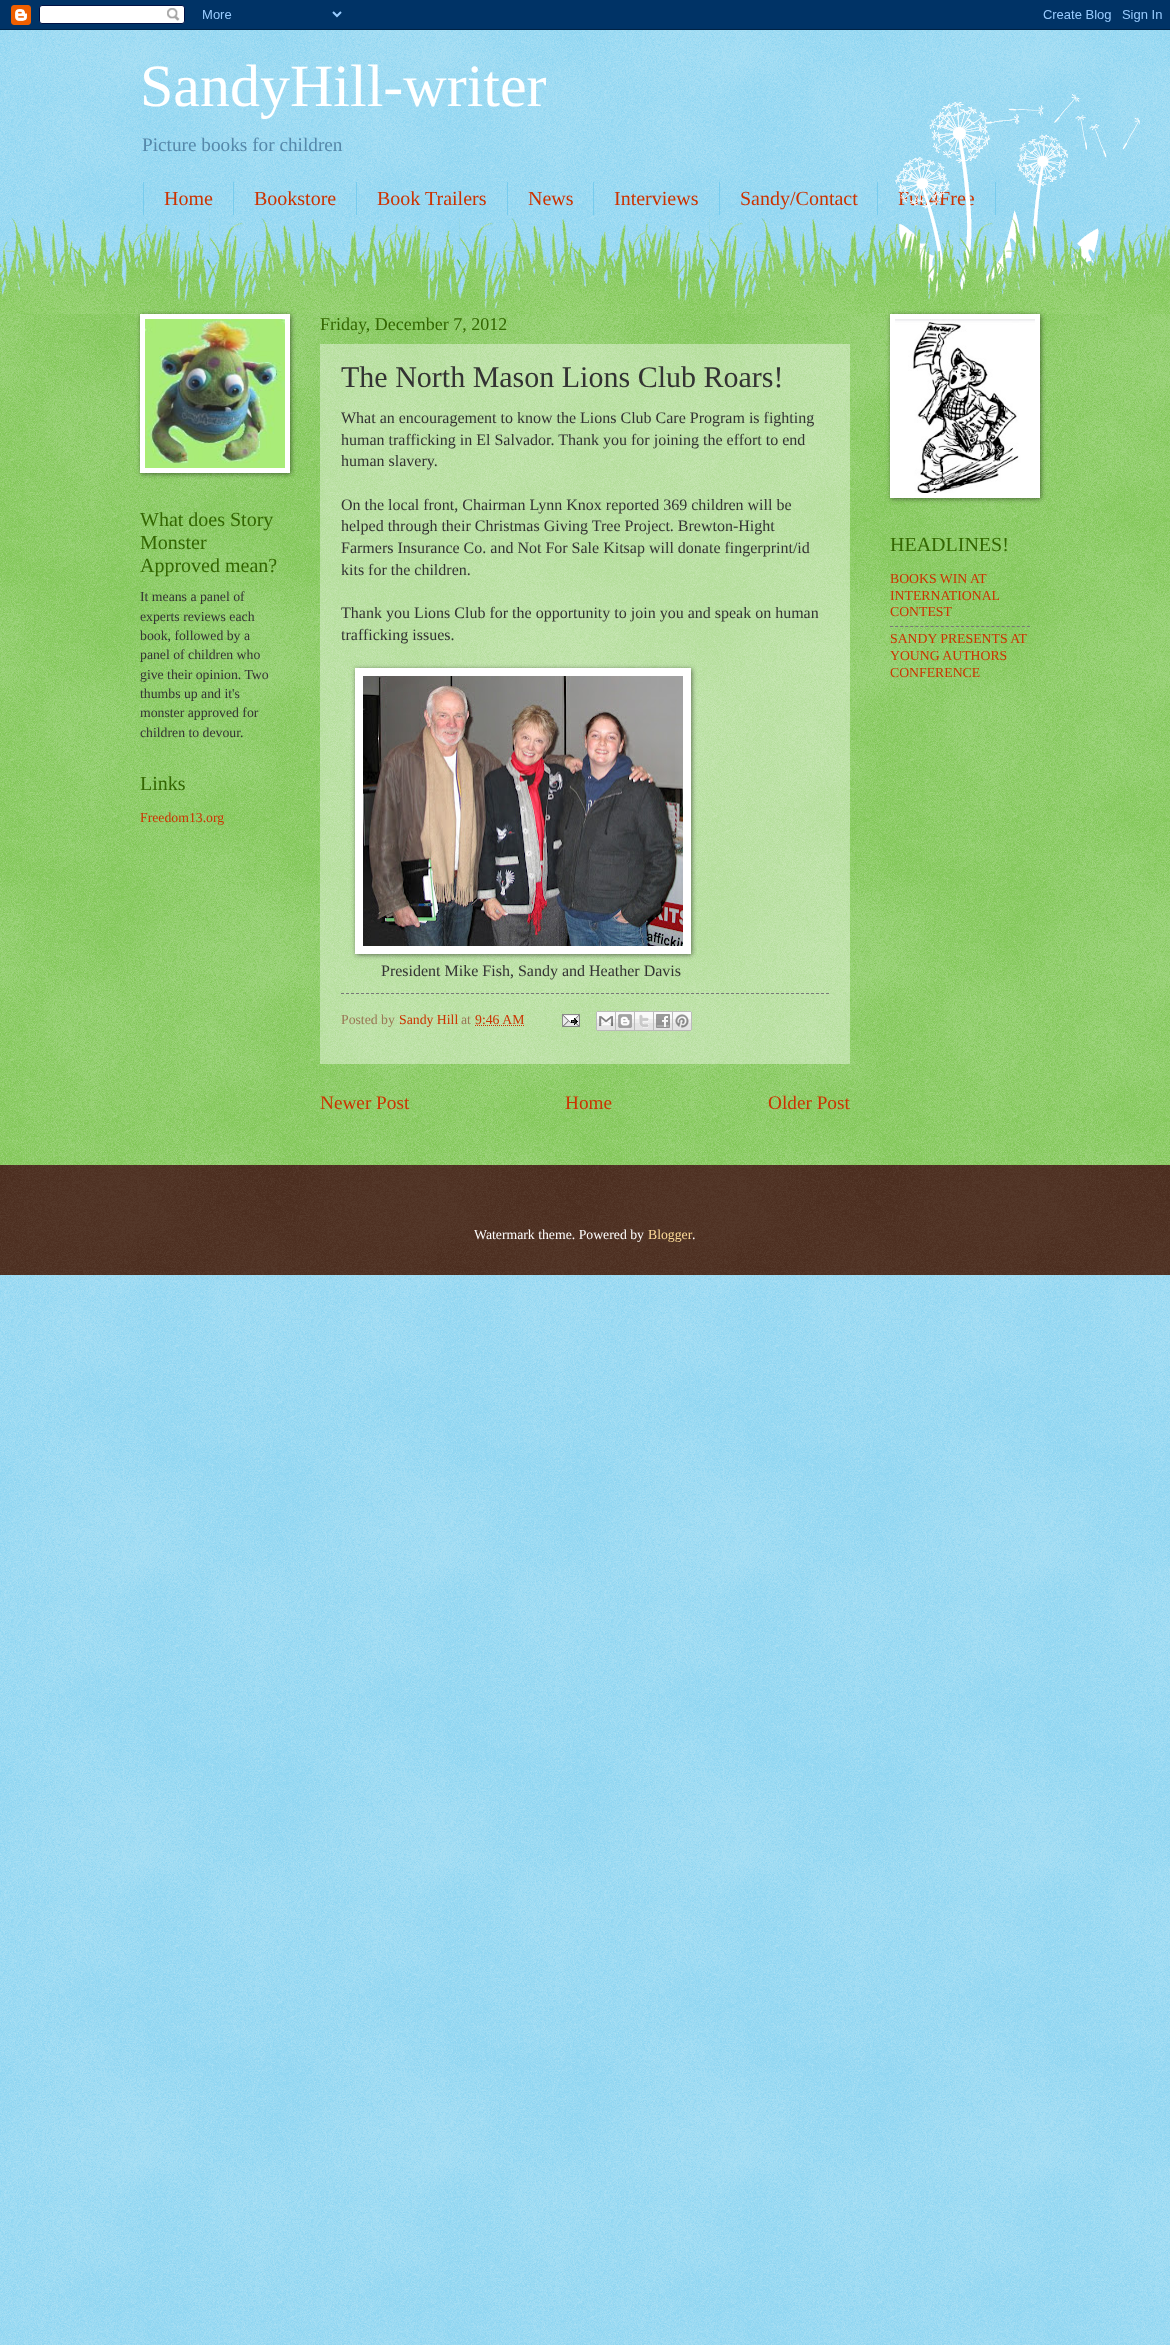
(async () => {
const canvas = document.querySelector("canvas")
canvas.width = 1170
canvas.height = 2345
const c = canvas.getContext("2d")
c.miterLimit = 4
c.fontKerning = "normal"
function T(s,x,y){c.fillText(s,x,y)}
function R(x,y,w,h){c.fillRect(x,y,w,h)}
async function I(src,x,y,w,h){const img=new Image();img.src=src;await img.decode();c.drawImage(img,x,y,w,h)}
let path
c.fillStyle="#7ce"
R(0,0,1170,2345)
await I("1.png",0,30,1170,2315)
await I("2.png",0,0,1170,30)
c.font="60px Liberation Serif"
c.fillStyle="#fff"
T("SandyHill-writer",140,106)
c.font="19.25px Liberation Serif"
c.fillStyle="#58a"
T("Picture books for children",142,151)
c.fillStyle="#7ce"
R(233,182,1,33)
R(143,182,1,33)
c.font="20px Liberation Serif"
c.fillStyle="#c30"
T("Home",164,205)
c.fillStyle="#7ce"
R(356,182,1,33)
c.fillStyle="#c30"
T("Bookstore",254,205)
c.fillStyle="#7ce"
R(507,182,1,33)
c.fillStyle="#c30"
T("Book Trailers",377,205)
c.fillStyle="#7ce"
R(593,182,1,33)
c.fillStyle="#c30"
T("News",528,205)
c.fillStyle="#7ce"
R(719,182,1,33)
c.fillStyle="#c30"
T("Interviews",614,205)
c.fillStyle="#7ce"
R(877,182,1,33)
c.fillStyle="#c30"
T("Sandy/Contact",740,205)
c.fillStyle="#7ce"
R(995,182,1,33)
c.fillStyle="#c30"
T("Fun4Free",898,205)
c.fillStyle="#6b3"
R(0,314,1170,851)
await I("3.png",0,314,1170,851)
await I("4.png",890,94,250,215)
await I("5.png",0,218,1170,96)
c.fillStyle="#00000080"
c.filter="blur(2.5px)"
c.beginPath()
c.rect(141,315,150,159)
c.fill()
c.filter="none"
c.fillStyle="#fff"
R(140,314,150,159)
await I("6.png",145,319,140,149)
c.fillStyle="#360"
T("What does Story",140,526)
T("Monster",140,549)
T("Approved mean?",140,572)
c.font="13.75px Liberation Serif"
c.fillStyle="#333"
T("It means a panel of",140,601)
T("experts reviews each",140,621)
T("book, followed by a",140,640)
T("panel of children who",140,659)
T("give their opinion. Two",140,679)
T("thumbs up and it's",140,698)
T("monster approved for",140,717)
T("children to devour.",140,737)
c.font="20px Liberation Serif"
c.fillStyle="#360"
T("Links",140,790)
c.font="13.75px Liberation Serif"
c.fillStyle="#c30"
T("Freedom13.org",140,822)
c.font="18px Liberation Serif"
c.fillStyle="#360"
T("Friday, December 7, 2012",320,330)
c.fillStyle="#ffffff66"
R(320,344,530,720)
c.font="30px Liberation Serif"
c.fillStyle="#333"
T("The North Mason Lions Club Roars!",341,387)
c.font="16px Liberation Serif"
T("What an encouragement to know the Lions Club Care Program is fighting",341,423)
T("human trafficking in El Salvador. Thank you for joining the effort to end",341,445)
T("human slavery.",341,466)
T("On the local front, Chairman Lynn Knox reported 369 children will be",341,510)
T("helped through their Christmas Giving Tree Project. Brewton-Hight",341,531)
T("Farmers Insurance Co. and Not For Sale Kitsap will donate fingerprint/id",341,553)
T("kits for the children.",341,575)
T("Thank you Lions Club for the opportunity to join you and speak on human",341,618)
T("trafficking issues.",341,640)
c.fillStyle="#00000080"
c.filter="blur(2.5px)"
c.beginPath()
c.rect(356,669,336,286)
c.fill()
c.filter="none"
c.fillStyle="#fff"
R(355,668,336,286)
await I("7.png",363,676,320,270)
c.fillStyle="#333"
T("President Mike Fish, Sandy and Heather Davis",381,976)
path = new Path2D("M341 993.5h488")
c.strokeStyle="#777"
c.setLineDash([3,2])
c.stroke(path)
c.font="13.75px Liberation Serif"
c.fillStyle="#975"
T("Posted by",341,1024)
c.fillStyle="#c30"
T("Sandy Hill",399,1024)
c.fillStyle="#975"
T("at",461,1024)
c.fillStyle="#c30"
T("9:46 AM",475,1024)
path = new Path2D("M475 1025.5h49.5")
c.strokeStyle="#c30"
c.setLineDash([1,1])
c.stroke(path)
await I("8.png",562,1014,18,13)
await I("9.png",596,1011,20,20)
await I("10.png",616,1011,19,20)
await I("11.png",635,1011,19,20)
await I("12.png",654,1011,19,20)
await I("13.png",673,1011,19,20)
c.font="19.25px Liberation Serif"
T("Newer Post",320,1109)
T("Home",565,1109)
T("Older Post",768,1109)
c.fillStyle="#00000080"
c.filter="blur(2.5px)"
c.beginPath()
c.rect(891,315,150,184)
c.fill()
c.filter="none"
c.fillStyle="#fff"
R(890,314,150,184)
await I("14.png",895,319,140,174)
c.font="20px Liberation Serif"
c.fillStyle="#360"
T("HEADLINES!",890,551)
c.font="13.75px Liberation Serif"
c.fillStyle="#c30"
T("BOOKS WIN AT",890,583)
T("INTERNATIONAL",890,600)
T("CONTEST",890,616)
path = new Path2D("M890 626.5h140")
c.strokeStyle="#777"
c.setLineDash([3,2.07])
c.stroke(path)
T("SANDY PRESENTS AT",890,643)
T("YOUNG AUTHORS",890,660)
T("CONFERENCE",890,677)
c.fillStyle="#310"
R(0,1165,1170,110)
await I("15.png",0,1165,1170,110)
c.fillStyle="#fff"
T("Watermark theme. Powered by",474,1239)
c.fillStyle="#fd9"
T("Blogger",648,1239)
c.fillStyle="#fff"
T(".",692,1239)
})()
